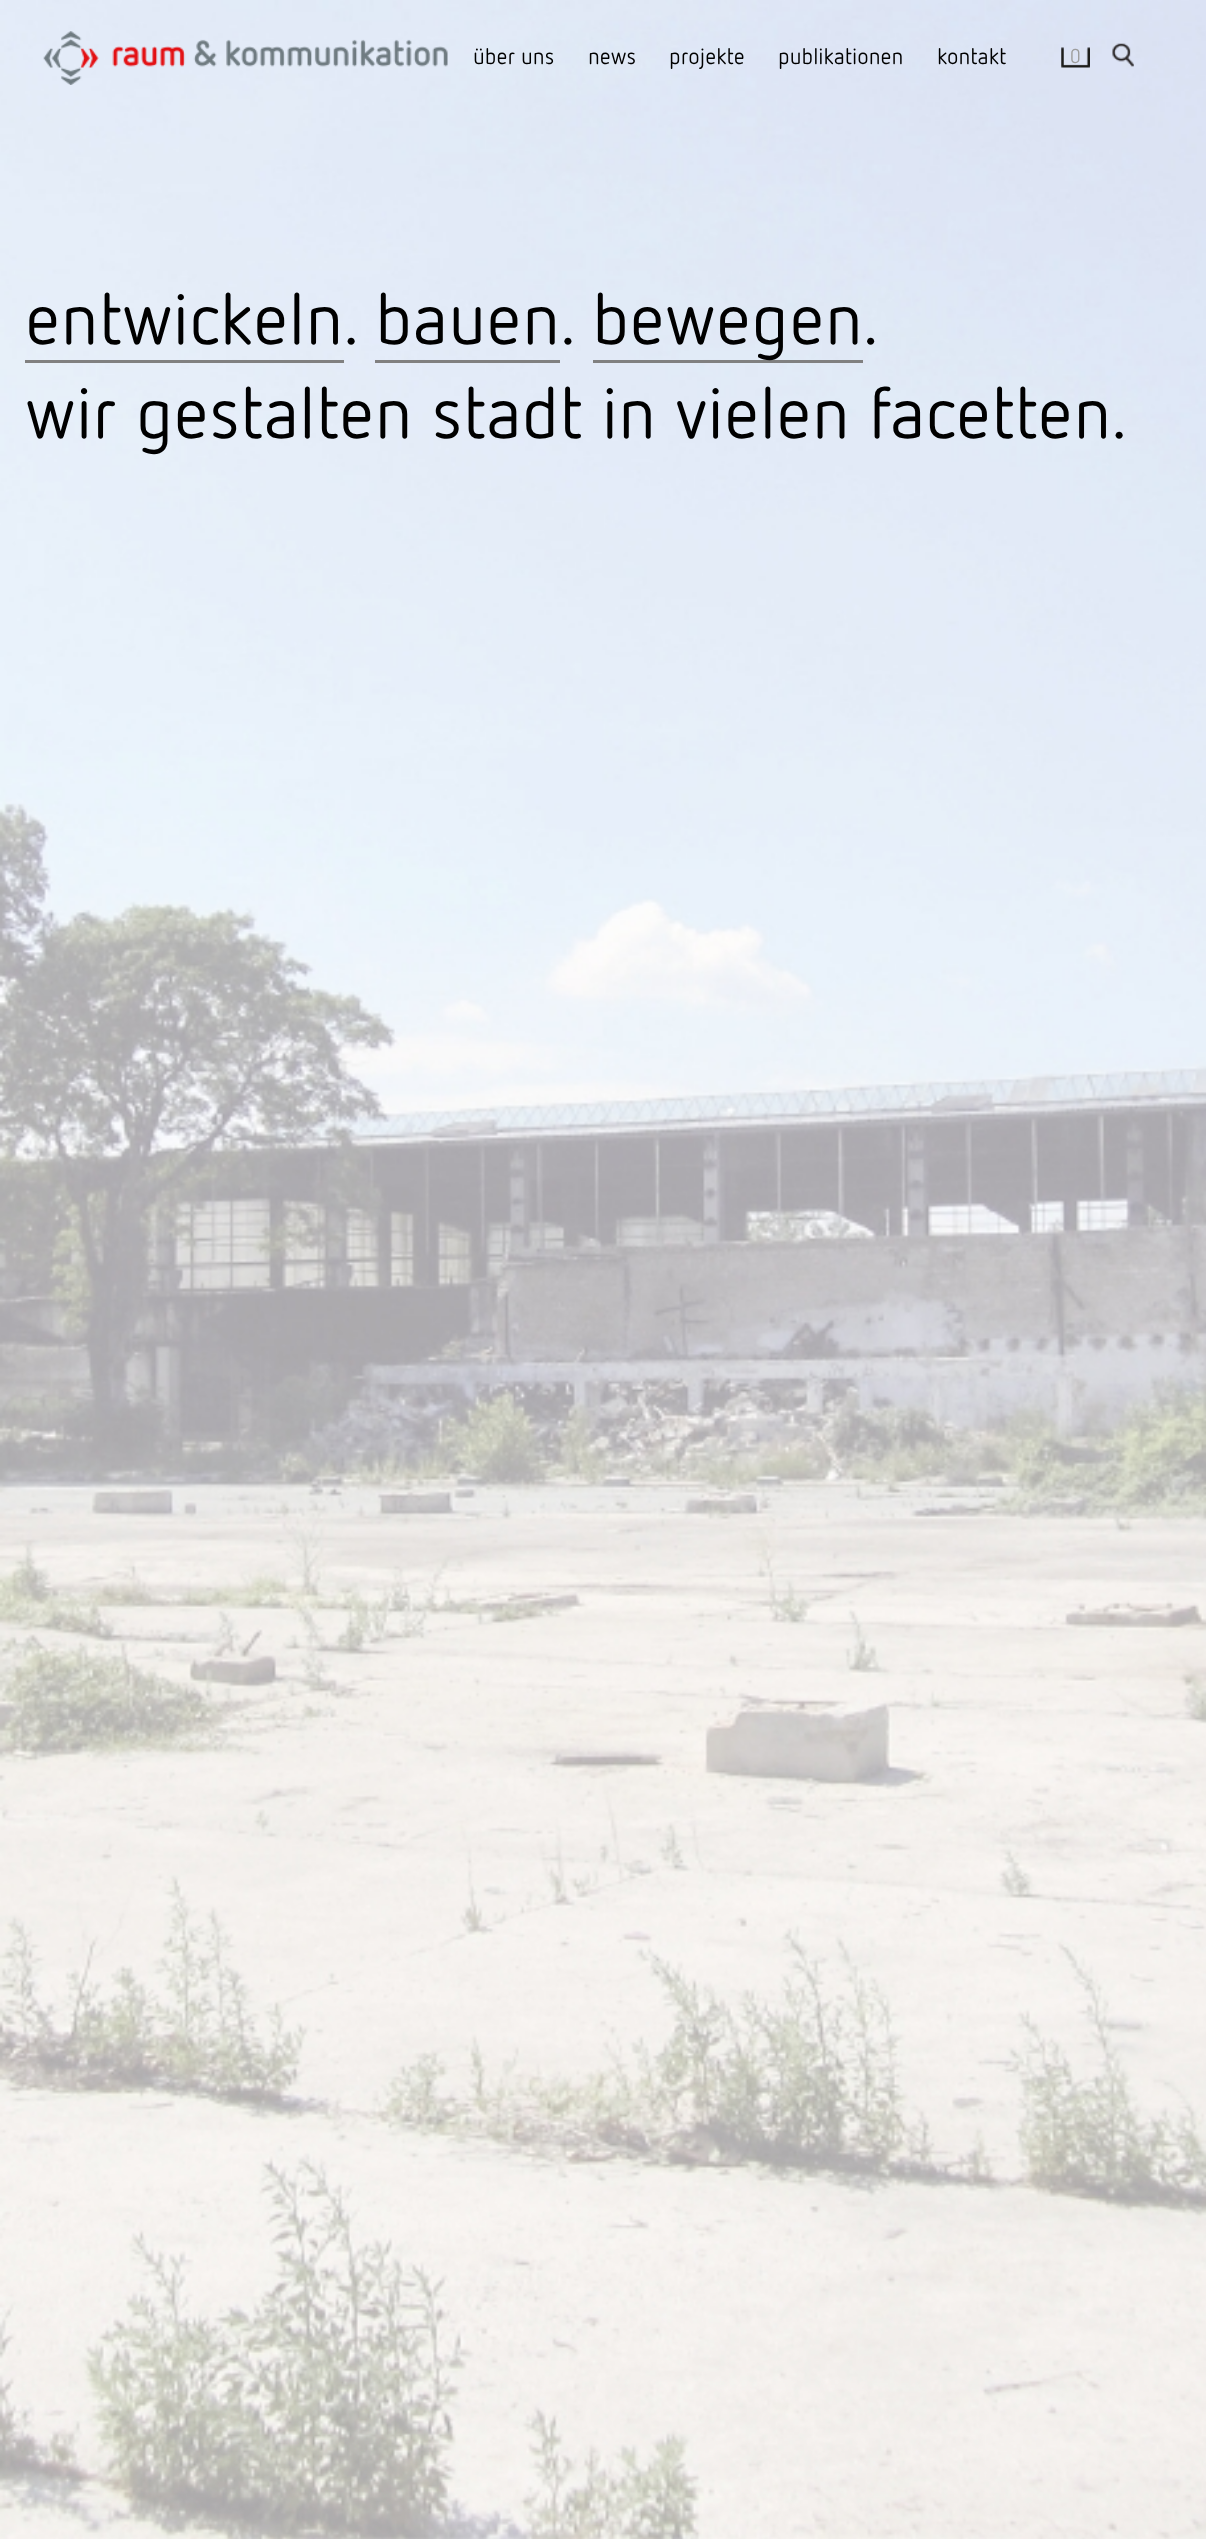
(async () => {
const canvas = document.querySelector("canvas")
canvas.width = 1206
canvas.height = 2539
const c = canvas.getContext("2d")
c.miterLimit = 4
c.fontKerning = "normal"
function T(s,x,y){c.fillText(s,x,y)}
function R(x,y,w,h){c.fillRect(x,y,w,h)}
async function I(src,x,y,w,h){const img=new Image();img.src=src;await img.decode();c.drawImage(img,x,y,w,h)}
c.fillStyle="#fff"
R(0,0,1206,2539)
await I("1.png",0,0,1206,2539)
await I("2.png",43,31,405,54)
c.font="22.5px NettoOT"
c.fillStyle="#000"
T("über uns",473,64)
T("news",588,64)
T("projekte",669,64)
T("publikationen",778,64)
T("kontakt",937,64)
await I("3.png",1061,47,29,21)
c.font="20px NettoOT"
c.fillStyle="#9d9d9c"
T("0",1070,63)
await I("4.png",1112,43,22,24)
c.font="72.5px NettoOT"
c.fillStyle="#000"
T("entwickeln.",25,344)
c.fillStyle="#808080"
R(25,360,319,3)
c.fillStyle="#000"
T("bauen.",375,344)
c.fillStyle="#808080"
R(375,360,185,3)
R(593,360,270,3)
c.fillStyle="#000"
T("bewegen.",592,344)
T("wir gestalten stadt in vielen facetten.",25,438)
})()
